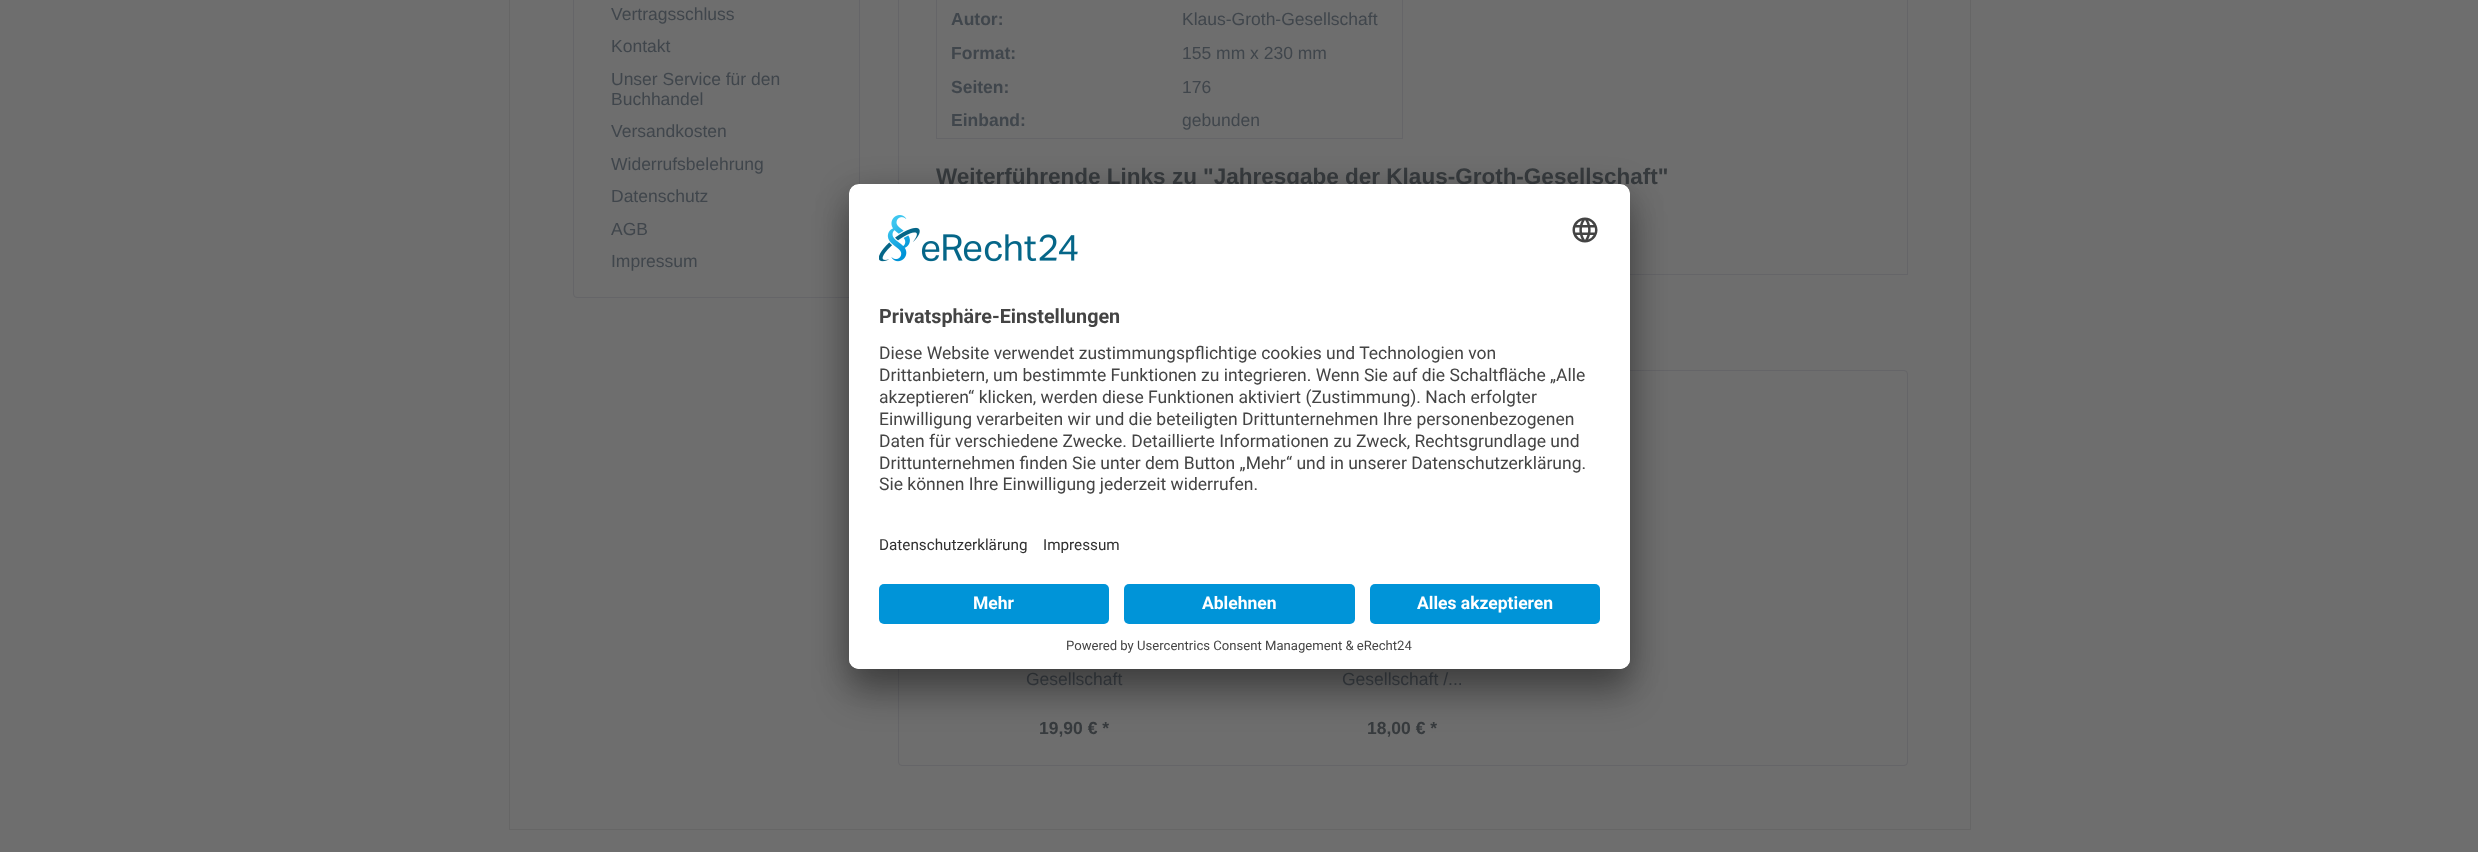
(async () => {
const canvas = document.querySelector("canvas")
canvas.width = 2478
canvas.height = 852
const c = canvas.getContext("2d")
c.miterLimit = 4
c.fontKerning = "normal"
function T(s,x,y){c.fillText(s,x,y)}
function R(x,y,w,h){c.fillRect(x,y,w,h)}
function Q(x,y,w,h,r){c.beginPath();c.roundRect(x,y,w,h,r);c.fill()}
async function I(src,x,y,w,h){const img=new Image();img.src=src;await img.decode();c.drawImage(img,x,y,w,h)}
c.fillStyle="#6e6e6e"
R(0,0,2478,852)
c.strokeStyle="#666"
c.strokeRect(509.5,-.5,1461,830)
c.beginPath()
c.roundRect(573.5,-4.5,286,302,3.5)
c.strokeStyle="#656568"
c.stroke()
c.font="17.5px Liberation Sans"
c.fillStyle="#40464c"
T("Vertragsschluss",611,20)
T("Kontakt",611,52)
T("Unser Service für den",611,85)
T("Buchhandel",611,105)
T("Versandkosten",611,137)
T("Widerrufsbelehrung",611,170)
T("Datenschutz",611,202)
T("AGB",611,235)
T("Impressum",611,267)
c.strokeRect(898.5,-.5,1009,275)
c.strokeRect(936.5,-.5,466,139)
c.font="bold 17.5px Liberation Sans"
T("Autor:",951,25)
c.font="17.5px Liberation Sans"
T("Klaus-Groth-Gesellschaft",1182,25)
c.font="bold 17.5px Liberation Sans"
T("Format:",951,59)
c.font="17.5px Liberation Sans"
T("155 mm x 230 mm",1182,59)
c.font="bold 17.5px Liberation Sans"
T("Seiten:",951,93)
c.font="17.5px Liberation Sans"
T("176",1182,93)
c.font="bold 17.5px Liberation Sans"
T("Einband:",951,126)
c.font="17.5px Liberation Sans"
T("gebunden",1182,126)
c.font="bold 22.5px Liberation Sans"
c.fillStyle="#373b3e"
T("Weiterführende Links zu \"Jahresgabe der Klaus-Groth-Gesellschaft\"",936,184)
c.beginPath()
c.roundRect(898.5,370.5,1009,395,3.5)
c.stroke()
c.font="17.5px Liberation Sans"
c.fillStyle="#40464c"
T("Gesellschaft",1026,685)
c.font="bold 17.5px Liberation Sans"
c.fillStyle="#373b3e"
T("19,90 € *",1039,734)
c.font="17.5px Liberation Sans"
c.fillStyle="#40464c"
T("Gesellschaft /...",1342,685)
c.font="bold 17.5px Liberation Sans"
c.fillStyle="#373b3e"
T("18,00 € *",1367,734)
c.fillStyle="#0000004d"
c.filter="blur(17.5px)"
c.beginPath()
c.roundRect(849,209,781,485,10)
c.fill()
c.filter="none"
c.fillStyle="#00000038"
c.filter="blur(16px)"
c.beginPath()
c.roundRect(849,190,781,485,10)
c.fill()
c.filter="none"
c.fillStyle="#fff"
Q(849,184,781,485,10)
c.save()
c.beginPath()
c.roundRect(849,184,781,485,10)
c.clip()
c.beginPath()
c.roundRect(849,184,781,390,[10,10,0,0])
c.clip()
R(849,185,781,389)
c.restore()
await I("1.png",879,215,199,47)
await I("2.png",1572,217,26,26)
c.font="bold 19.75px Roboto"
c.fillStyle="#444"
T("Privatsphäre-Einstellungen",879,323)
c.font="17.5px Roboto"
T("Diese Website verwendet zustimmungspflichtige cookies und Technologien von",879,359)
T("Drittanbietern, um bestimmte Funktionen zu integrieren. Wenn Sie auf die Schaltfläche „Alle",879,381)
T("akzeptieren“ klicken, werden diese Funktionen aktiviert (Zustimmung). Nach erfolgter",879,403)
T("Einwilligung verarbeiten wir und die beteiligten Drittunternehmen Ihre personenbezogenen",879,425)
T("Daten für verschiedene Zwecke. Detaillierte Informationen zu Zweck, Rechtsgrundlage und",879,447)
T("Drittunternehmen finden Sie unter dem Button „Mehr“ und in unserer Datenschutzerklärung.",879,469)
T("Sie können Ihre Einwilligung jederzeit widerrufen.",879,490)
c.font="15.25px Roboto"
c.fillStyle="#303030"
T("Datenschutzerklärung",879,550)
T("Impressum",1043,550)
c.fillStyle="#fff"
c.beginPath()
c.roundRect(849,574,781,95,[0,0,10,10])
c.fill()
c.fillStyle="#0094d8"
Q(879,584,230,40,5)
c.font="bold 17.5px Roboto"
c.fillStyle="#fff"
T("Mehr",973,609)
c.fillStyle="#0094d8"
Q(1124,584,231,40,5)
c.fillStyle="#fff"
T("Ablehnen",1202,609)
c.fillStyle="#0094d8"
Q(1370,584,230,40,5)
c.fillStyle="#fff"
T("Alles akzeptieren",1417,609)
c.font="13.1px Roboto"
c.fillStyle="#444"
T("Powered by Usercentrics Consent Management & eRecht24",1066,650)
})()
